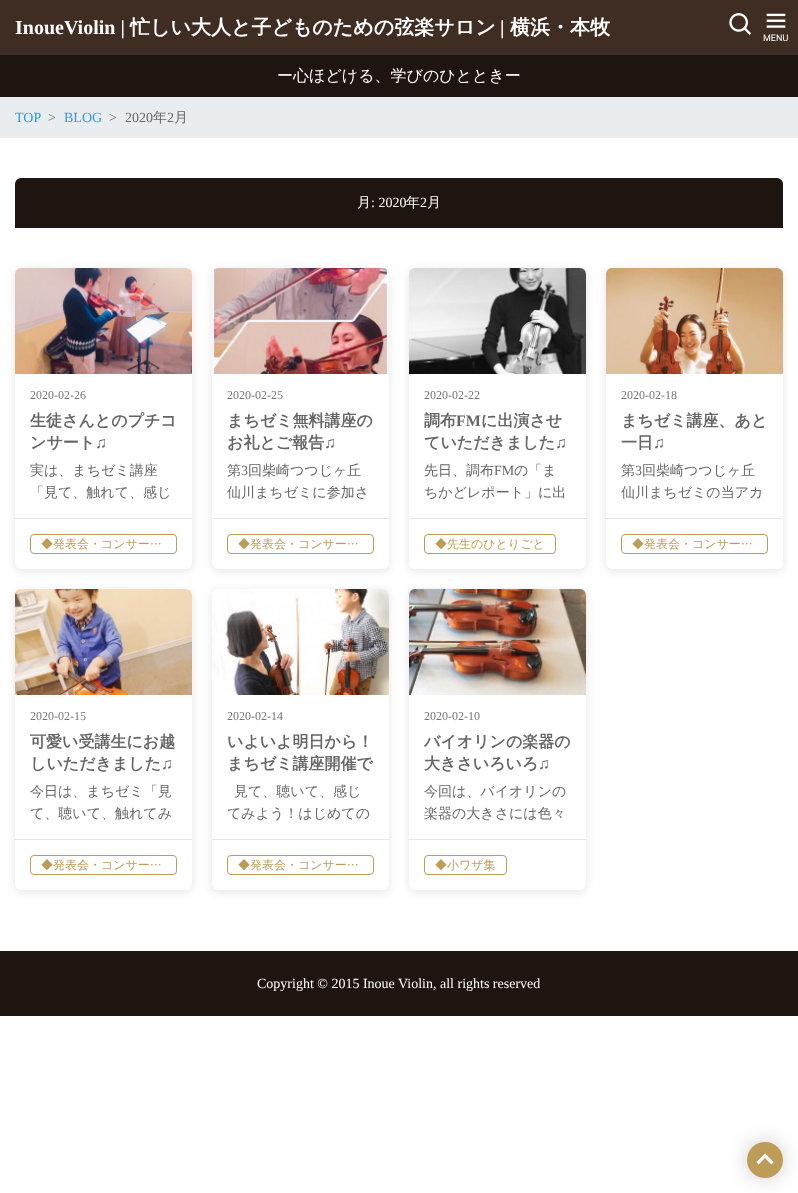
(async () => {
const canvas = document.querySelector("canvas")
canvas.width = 798
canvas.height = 1193
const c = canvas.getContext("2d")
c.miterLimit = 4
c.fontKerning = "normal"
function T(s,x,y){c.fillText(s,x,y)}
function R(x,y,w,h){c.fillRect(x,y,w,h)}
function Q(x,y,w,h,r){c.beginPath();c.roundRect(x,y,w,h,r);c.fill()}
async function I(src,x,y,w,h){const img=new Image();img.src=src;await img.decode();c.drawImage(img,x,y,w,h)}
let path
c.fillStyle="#fff"
R(0,0,798,1193)
c.fillStyle="#3f2d23"
R(0,0,798,55)
c.font="bold 20px Liberation Serif"
c.fillStyle="#fff"
T("InoueViolin |",15,34)
c.font="bold 20px WenQuanYi Zen Hei"
T("忙しい大人と子どものための弦楽サロン",130,34)
c.font="bold 20px Liberation Serif"
T("|",500,34)
c.font="bold 20px WenQuanYi Zen Hei"
T("横浜・本牧",510,34)
await I("1.png",729,13,22,22)
await I("2.png",766,13,20,15)
c.font="9px Roboto"
T("MENU",763,41)
c.fillStyle="#1e1510"
R(0,55,798,42)
c.font="500 16px WenQuanYi Zen Hei"
c.fillStyle="#fff"
T("ー心ほどける、学びのひとときー",277,81)
c.fillStyle="#e9edef"
R(0,97,798,41)
c.font="14px Liberation Serif"
c.fillStyle="#3398db"
T("TOP",15,122)
c.fillStyle="#666"
T(">",48,122)
c.fillStyle="#3398db"
T("BLOG",64,122)
c.fillStyle="#666"
T(">",109,122)
T("2020",125,122)
c.font="500 14px WenQuanYi Zen Hei"
T("年",153,122)
c.font="14px Liberation Serif"
T("2",167,122)
c.font="500 14px WenQuanYi Zen Hei"
T("月",174,122)
c.fillStyle="#1e1510"
c.beginPath()
c.roundRect(15,178,768,50,[6,6,0,0])
c.fill()
c.fillStyle="#fff"
T("月",357,207)
c.font="14px Liberation Serif"
T(": 2020",371,207)
c.font="500 14px WenQuanYi Zen Hei"
T("年",406,207)
c.font="14px Liberation Serif"
T("2",420,207)
c.font="500 14px WenQuanYi Zen Hei"
T("月",427,207)
c.fillStyle="#0000001a"
c.filter="blur(5px)"
c.beginPath()
c.roundRect(15,270,177,301,6)
c.fill()
c.filter="none"
c.fillStyle="#fff"
Q(15,268,177,301,6)
await I("3.png",15,268,177,106)
c.font="12px Liberation Serif"
c.fillStyle="#757575"
T("2020-02-26",30,399)
c.font="bold 16px WenQuanYi Zen Hei"
c.fillStyle="#666"
T("生徒さんとのプチコ",30,426)
T("ンサート",30,448)
c.font="bold 16px Liberation Serif"
T("♫",95,448)
c.font="500 14px WenQuanYi Zen Hei"
T("実は、まちゼミ講座",30,475)
T("「見て、触れて、感じ",30,497)
c.fillStyle="#e8e8e8"
R(15,518,177,1)
c.beginPath()
c.roundRect(30.5,534.5,146,19,3.5)
c.strokeStyle="#bd9c57"
c.stroke()
c.font="500 12px WenQuanYi Zen Hei"
c.fillStyle="#bd9c57"
T("◆発表会・コンサー…",41,548)
c.fillStyle="#0000001a"
c.filter="blur(5px)"
c.beginPath()
c.roundRect(212,270,177,301,6)
c.fill()
c.filter="none"
c.fillStyle="#fff"
Q(212,268,177,301,6)
await I("4.png",212,268,177,106)
c.font="12px Liberation Serif"
c.fillStyle="#757575"
T("2020-02-25",227,399)
c.font="bold 16px WenQuanYi Zen Hei"
c.fillStyle="#666"
T("まちゼミ無料講座の",227,426)
T("お礼とご報告",227,448)
c.font="bold 16px Liberation Serif"
T("♫",324,448)
c.font="500 14px WenQuanYi Zen Hei"
T("第",227,475)
c.font="14px Liberation Serif"
T("3",241,475)
c.font="500 14px WenQuanYi Zen Hei"
T("回柴崎つつじヶ丘",248,475)
T("仙川まちゼミに参加さ",227,497)
c.fillStyle="#e8e8e8"
R(212,518,177,1)
c.beginPath()
c.roundRect(227.5,534.5,146,19,3.5)
c.stroke()
c.font="500 12px WenQuanYi Zen Hei"
c.fillStyle="#bd9c57"
T("◆発表会・コンサー…",238,548)
c.fillStyle="#0000001a"
c.filter="blur(5px)"
c.beginPath()
c.roundRect(409,270,177,301,6)
c.fill()
c.filter="none"
c.fillStyle="#fff"
Q(409,268,177,301,6)
await I("5.png",409,268,177,106)
c.font="12px Liberation Serif"
c.fillStyle="#757575"
T("2020-02-22",424,399)
c.font="bold 16px WenQuanYi Zen Hei"
c.fillStyle="#666"
T("調布",424,426)
c.font="bold 16px Liberation Serif"
T("FM",456,426)
c.font="bold 16px WenQuanYi Zen Hei"
T("に出演させ",481,426)
T("ていただきました",424,448)
c.font="bold 16px Liberation Serif"
T("♫",555,448)
c.font="500 14px WenQuanYi Zen Hei"
T("先日、調布",424,475)
c.font="14px Liberation Serif"
T("FM",494,475)
c.font="500 14px WenQuanYi Zen Hei"
T("の「ま",514,475)
T("ちかどレポート」に出",424,497)
c.fillStyle="#e8e8e8"
R(409,518,177,1)
c.beginPath()
c.roundRect(424.5,534.5,131,19,3.5)
c.stroke()
c.font="500 12px WenQuanYi Zen Hei"
c.fillStyle="#bd9c57"
T("◆先生のひとりごと",435,548)
c.fillStyle="#0000001a"
c.filter="blur(5px)"
c.beginPath()
c.roundRect(606,270,177,301,6)
c.fill()
c.filter="none"
c.fillStyle="#fff"
Q(606,268,177,301,6)
await I("6.png",606,268,177,106)
c.font="12px Liberation Serif"
c.fillStyle="#757575"
T("2020-02-18",621,399)
c.font="bold 16px WenQuanYi Zen Hei"
c.fillStyle="#666"
T("まちゼミ講座、あと",621,426)
T("一日",621,448)
c.font="bold 16px Liberation Serif"
T("♫",653,448)
c.font="500 14px WenQuanYi Zen Hei"
T("第",621,475)
c.font="14px Liberation Serif"
T("3",635,475)
c.font="500 14px WenQuanYi Zen Hei"
T("回柴崎つつじヶ丘",642,475)
T("仙川まちゼミの当アカ",621,497)
c.fillStyle="#e8e8e8"
R(606,518,177,1)
c.beginPath()
c.roundRect(621.5,534.5,146,19,3.5)
c.stroke()
c.font="500 12px WenQuanYi Zen Hei"
c.fillStyle="#bd9c57"
T("◆発表会・コンサー…",632,548)
c.fillStyle="#0000001a"
c.filter="blur(5px)"
c.beginPath()
c.roundRect(15,591,177,301,6)
c.fill()
c.filter="none"
c.fillStyle="#fff"
Q(15,589,177,301,6)
await I("7.png",15,589,177,106)
c.font="12px Liberation Serif"
c.fillStyle="#757575"
T("2020-02-15",30,720)
c.font="bold 16px WenQuanYi Zen Hei"
c.fillStyle="#666"
T("可愛い受講生にお越",30,747)
T("しいただきました",30,769)
c.font="bold 16px Liberation Serif"
T("♫",161,769)
c.font="500 14px WenQuanYi Zen Hei"
T("今日は、まちゼミ「見",30,796)
T("て、聴いて、触れてみ",30,818)
c.fillStyle="#e8e8e8"
R(15,839,177,1)
c.beginPath()
c.roundRect(30.5,855.5,146,19,3.5)
c.stroke()
c.font="500 12px WenQuanYi Zen Hei"
c.fillStyle="#bd9c57"
T("◆発表会・コンサー…",41,869)
c.fillStyle="#0000001a"
c.filter="blur(5px)"
c.beginPath()
c.roundRect(212,591,177,301,6)
c.fill()
c.filter="none"
c.fillStyle="#fff"
Q(212,589,177,301,6)
await I("8.png",212,589,177,106)
c.font="12px Liberation Serif"
c.fillStyle="#757575"
T("2020-02-14",227,720)
c.font="bold 16px WenQuanYi Zen Hei"
c.fillStyle="#666"
T("いよいよ明日から！",227,747)
T("まちゼミ講座開催で",227,769)
c.font="500 14px WenQuanYi Zen Hei"
T("見て、聴いて、感じ",234,796)
T("てみよう！はじめての",227,818)
c.fillStyle="#e8e8e8"
R(212,839,177,1)
c.beginPath()
c.roundRect(227.5,855.5,146,19,3.5)
c.stroke()
c.font="500 12px WenQuanYi Zen Hei"
c.fillStyle="#bd9c57"
T("◆発表会・コンサー…",238,869)
c.fillStyle="#0000001a"
c.filter="blur(5px)"
c.beginPath()
c.roundRect(409,591,177,301,6)
c.fill()
c.filter="none"
c.fillStyle="#fff"
Q(409,589,177,301,6)
await I("9.png",409,589,177,106)
c.font="12px Liberation Serif"
c.fillStyle="#757575"
T("2020-02-10",424,720)
c.font="bold 16px WenQuanYi Zen Hei"
c.fillStyle="#666"
T("バイオリンの楽器の",424,747)
T("大きさいろいろ",424,769)
c.font="bold 16px Liberation Serif"
T("♫",538,769)
c.font="500 14px WenQuanYi Zen Hei"
T("今回は、バイオリンの",424,796)
T("楽器の大きさには色々",424,818)
c.fillStyle="#e8e8e8"
R(409,839,177,1)
c.beginPath()
c.roundRect(424.5,855.5,82,19,3.5)
c.stroke()
c.font="500 12px WenQuanYi Zen Hei"
c.fillStyle="#bd9c57"
T("◆小ワザ集",435,869)
c.fillStyle="#1e1510"
R(0,951,798,65)
c.font="14px Liberation Serif"
c.fillStyle="#fff"
T("Copyright © 2015 Inoue Violin, all rights reserved",257,988)
c.fillStyle="#00000033"
c.filter="blur(10px)"
c.beginPath()
c.roundRect(747,1142,36,36,18)
c.fill()
c.filter="none"
c.fillStyle="#bd9c57"
c.beginPath()
c.arc(765,1160,18,0,7)
c.fill()
c.fillStyle="#fff"
path = new Path2D("M756.5 1162l2 2.5l6.5-6.5l6.5 6.5l2-2.5l-8.5-8.5z")
c.fill(path)
})()
